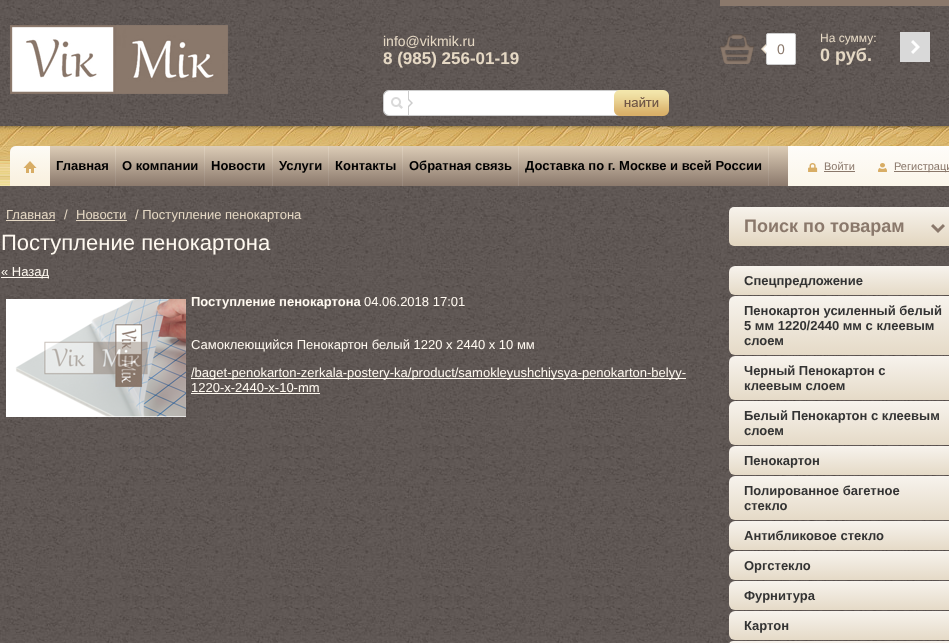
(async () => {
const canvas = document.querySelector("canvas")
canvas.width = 949
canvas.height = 643
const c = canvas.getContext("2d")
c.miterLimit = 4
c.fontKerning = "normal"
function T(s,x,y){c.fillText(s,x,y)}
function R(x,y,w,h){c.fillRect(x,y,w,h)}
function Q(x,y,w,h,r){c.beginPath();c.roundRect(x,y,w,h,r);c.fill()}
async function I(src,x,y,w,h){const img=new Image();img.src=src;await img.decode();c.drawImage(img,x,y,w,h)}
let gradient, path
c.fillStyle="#fff"
R(0,0,949,643)
await I("1.png",0,0,949,643)
await I("2.png",10,25,218,69)
c.font="14px Liberation Sans"
c.fillStyle="#e5d8c4"
T("info@vikmik.ru",383,46)
c.font="bold 17px Liberation Sans"
T("8 (985) 256-01-19",383,64)
await I("3.png",383,90,286,26)
c.fillStyle="#8a786b"
R(720,0,229,6)
await I("4.png",720,34,34,30)
c.fillStyle="#fff"
c.beginPath()
c.roundRect(766.5,33.5,29,31,1.5)
c.fill()
c.strokeStyle="#ccc"
c.stroke()
c.fillStyle="#e5d8c4"
path = new Path2D("M766 44v10l-5-5z")
c.fill(path)
c.font="14px Liberation Sans"
c.fillStyle="#8a786b"
T("0",777,54)
c.fillStyle="#fff"
path = new Path2D("M767 45v8l-4-4z")
c.fill(path)
c.font="12px Liberation Sans"
c.fillStyle="#e5d8c4"
T("На сумму:",820,42)
c.font="bold 18px Liberation Sans"
T("0 руб.",820,61)
c.fillStyle="#d9d9d9"
R(900,32,30,30)
await I("5.png",911,40,9,14)
await I("6.png",0,126,949,60)
gradient = c.createLinearGradient(490,146,490,186)
gradient.addColorStop(0,"#dcccb6")
gradient.addColorStop(1,"#8b796c")
c.fillStyle = gradient
path = new Path2D("M16 146h933c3.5 0 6 2.5 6 6v34h-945v-34c0-3.5 2.5-6 6-6z")
c.fill(path)
gradient = c.createLinearGradient(30,146,30,186)
gradient.addColorStop(0,"#fdfbf5")
gradient.addColorStop(1,"#f9f0de")
c.fillStyle = gradient
c.beginPath()
c.roundRect(10,146,40,40,[6,0,0,0])
c.fill()
await I("7.png",23,161,14,12)
await I("8.png",115,146,1,40)
c.font="bold 13px Liberation Sans"
c.fillStyle="#000"
T("Главная",56,170)
await I("8.png",204,146,1,40)
T("О компании",122,170)
await I("8.png",272,146,1,40)
T("Новости",211,170)
await I("8.png",328,146,1,40)
T("Услуги",279,170)
await I("8.png",402,146,1,40)
T("Контакты",335,170)
await I("8.png",518,146,1,40)
T("Обратная связь",409,170)
await I("8.png",768,146,1,40)
T("Доставка по г. Москве и всей России",525,170)
gradient = c.createLinearGradient(879,146,879,186)
gradient.addColorStop(0,"#fefcf9")
gradient.addColorStop(1,"#fbf6ea")
c.fillStyle = gradient
R(788,146,161,40)
await I("9.png",808,163,10,9)
c.font="11px Liberation Sans"
c.fillStyle="#8a786b"
T("Войти",824,170)
R(824,171,31,1)
await I("10.png",878,163,9,9)
R(894,171,55,1)
T("Регистраци",894,170)
c.font="13px Liberation Sans"
c.fillStyle="#e5d8c4"
T("Главная",6,219)
R(6,220,49,1)
T("/",64,219)
T("Новости",76,219)
R(76,220,51,1)
T("/ Поступление пенокартона",135,219)
c.font="22px Liberation Sans"
c.fillStyle="#fff9f0"
T("Поступление пенокартона",1,250)
R(1,277,48,1)
c.font="13px Liberation Sans"
T("« Назад",1,276)
await I("11.png",6,299,180,118)
c.font="bold 13px Liberation Sans"
T("Поступление пенокартона",191,306)
c.font="13px Liberation Sans"
T("04.06.2018 17:01",364,306)
T("Самоклеющийся Пенокартон белый 1220 x 2440 x 10 мм",191,349)
R(191,378,495,1)
T("/baget-penokarton-zerkala-postery-ka/product/samokleyushchiysya-penokarton-belyy-",191,377)
T("1220-x-2440-x-10-mm",191,392)
R(191,393,129,1)
gradient = c.createLinearGradient(844,207,844,246)
gradient.addColorStop(0,"#f7f3ec")
gradient.addColorStop(1,"#e3d6c0")
c.fillStyle = gradient
Q(729,207,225,39,5)
c.font="bold 18px Liberation Sans"
c.fillStyle="#8a786b"
T("Поиск по товарам",744,232)
await I("12.png",931,224,14,9)
gradient = c.createLinearGradient(844,266,844,295)
gradient.addColorStop(0,"#f7f3ed")
gradient.addColorStop(1,"#e5dac7")
c.fillStyle = gradient
Q(729,266,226,29,6)
c.font="bold 13px Liberation Sans"
c.fillStyle="#333"
T("Спецпредложение",744,285)
gradient = c.createLinearGradient(844,296,844,355)
gradient.addColorStop(0,"#f7f3ed")
gradient.addColorStop(1,"#e5dac7")
c.fillStyle = gradient
Q(729,296,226,59,6)
c.fillStyle="#333"
T("Пенокартон усиленный белый",744,315)
T("5 мм 1220/2440 мм с клеевым",744,330)
T("слоем",744,345)
gradient = c.createLinearGradient(844,356,844,400)
gradient.addColorStop(0,"#f7f3ed")
gradient.addColorStop(1,"#e5dac7")
c.fillStyle = gradient
Q(729,356,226,44,6)
c.fillStyle="#333"
T("Черный Пенокартон с",744,375)
T("клеевым слоем",744,390)
gradient = c.createLinearGradient(844,401,844,445)
gradient.addColorStop(0,"#f7f3ed")
gradient.addColorStop(1,"#e5dac7")
c.fillStyle = gradient
Q(729,401,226,44,6)
c.fillStyle="#333"
T("Белый Пенокартон с клеевым",744,420)
T("слоем",744,435)
gradient = c.createLinearGradient(844,446,844,475)
gradient.addColorStop(0,"#f7f3ed")
gradient.addColorStop(1,"#e5dac7")
c.fillStyle = gradient
Q(729,446,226,29,6)
c.fillStyle="#333"
T("Пенокартон",744,465)
gradient = c.createLinearGradient(844,476,844,520)
gradient.addColorStop(0,"#f7f3ed")
gradient.addColorStop(1,"#e5dac7")
c.fillStyle = gradient
Q(729,476,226,44,6)
c.fillStyle="#333"
T("Полированное багетное",744,495)
T("стекло",744,510)
gradient = c.createLinearGradient(844,521,844,550)
gradient.addColorStop(0,"#f7f3ed")
gradient.addColorStop(1,"#e5dac7")
c.fillStyle = gradient
Q(729,521,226,29,6)
c.fillStyle="#333"
T("Антибликовое стекло",744,540)
gradient = c.createLinearGradient(844,551,844,580)
gradient.addColorStop(0,"#f7f3ed")
gradient.addColorStop(1,"#e5dac7")
c.fillStyle = gradient
Q(729,551,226,29,6)
c.fillStyle="#333"
T("Оргстекло",744,570)
gradient = c.createLinearGradient(844,581,844,610)
gradient.addColorStop(0,"#f7f3ed")
gradient.addColorStop(1,"#e5dac7")
c.fillStyle = gradient
Q(729,581,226,29,6)
c.fillStyle="#333"
T("Фурнитура",744,600)
gradient = c.createLinearGradient(844,611,844,640)
gradient.addColorStop(0,"#f7f3ed")
gradient.addColorStop(1,"#e5dac7")
c.fillStyle = gradient
Q(729,611,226,29,6)
c.fillStyle="#333"
T("Картон",744,630)
gradient = c.createLinearGradient(844,641,844,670)
gradient.addColorStop(0,"#f7f3ed")
gradient.addColorStop(1,"#e5dac7")
c.fillStyle = gradient
Q(729,641,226,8,6)
})()
